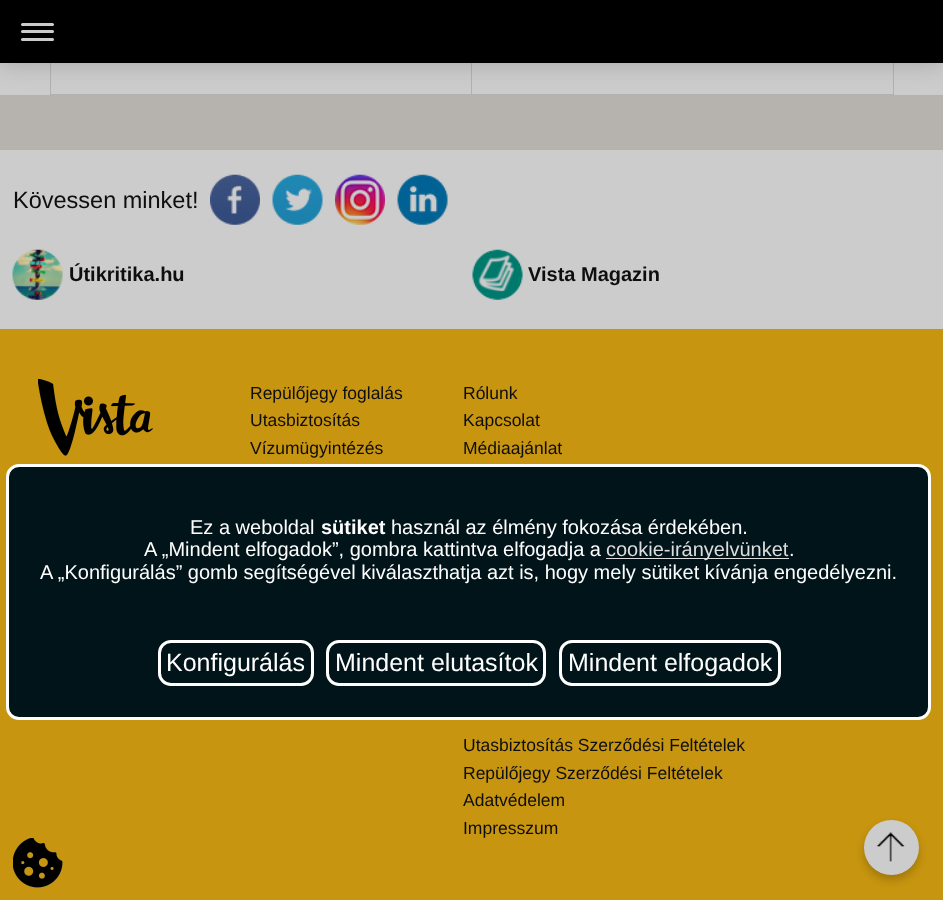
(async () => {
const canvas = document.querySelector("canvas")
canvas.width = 943
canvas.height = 900
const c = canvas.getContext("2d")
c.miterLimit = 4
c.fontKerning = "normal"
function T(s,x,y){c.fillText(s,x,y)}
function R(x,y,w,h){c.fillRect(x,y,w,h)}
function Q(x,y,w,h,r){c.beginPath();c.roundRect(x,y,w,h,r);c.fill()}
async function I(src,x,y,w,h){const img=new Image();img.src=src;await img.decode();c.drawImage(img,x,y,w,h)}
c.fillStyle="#b6b3ae"
R(0,0,943,900)
c.fillStyle="#ccc"
R(0,63,943,32)
c.fillStyle="#b1b1b1"
R(50,63,1,32)
R(471,63,1,32)
R(51,94,422,1)
c.fillStyle="#ccc"
c.beginPath()
c.roundRect(64,14,395,67,[0,0,2.5,2.5])
c.fill()
c.fillStyle="#b1b1b1"
R(893,63,1,32)
R(473,94,421,1)
c.fillStyle="#ccc"
c.beginPath()
c.roundRect(485,14,395,67,[0,0,2.5,2.5])
c.fill()
c.fillStyle="#00000033"
c.filter="blur(12.5px)"
c.beginPath()
c.rect(0,0,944,63)
c.fill()
c.filter="none"
c.fillStyle="#000"
R(0,0,943,63)
c.fillStyle="#c7950f"
R(0,329,943,571)
c.fillStyle="#00000033"
c.filter="blur(4px)"
c.beginPath()
c.roundRect(864,825,55,55,27.5)
c.fill()
c.filter="none"
c.fillStyle="#ccc"
c.beginPath()
c.arc(891.5,847.5,27.5,0,7)
c.fill()
await I("1.png",876,832,29,30)
Q(21,30,33,3,1.5)
Q(21,23,33,3,1.5)
Q(21,38,33,3,1.5)
R(0,150,943,179)
c.font="23.5px Liberation Sans"
c.fillStyle="#0e0e0e"
T("Kövessen minket!",13,208)
await I("2.png",210,174,50,51)
await I("3.png",272,174,51,51)
await I("4.png",335,174,50,51)
await I("5.png",397,174,51,51)
await I("6.png",12,249,51,51)
c.font="bold 20px Liberation Sans"
T("Útikritika.hu",69,281)
await I("7.png",472,249,51,51)
T("Vista Magazin",528,281)
await I("8.png",38,379,115,77)
c.font="17.5px Liberation Sans"
T("Repülőjegy foglalás",250,399)
T("Utasbiztosítás",250,426)
T("Vízumügyintézés",250,454)
T("Rólunk",463,399)
T("Kapcsolat",463,426)
T("Médiaajánlat",463,454)
T("Utasbiztosítás Szerződési Feltételek",463,751)
T("Repülőjegy Szerződési Feltételek",463,779)
T("Adatvédelem",463,806)
T("Impresszum",463,834)
c.fillStyle="#01141a"
c.beginPath()
c.roundRect(7.5,465.5,922,253,11.5)
c.fill()
c.strokeStyle="#fff"
c.lineWidth=3
c.stroke()
c.font="20px Liberation Sans"
c.fillStyle="#fff"
T("Ez a weboldal",190,534)
c.font="bold 20px Liberation Sans"
T("sütiket",321,534)
c.font="20px Liberation Sans"
T("használ az élmény fokozása érdekében.",391,534)
T("A „Mindent elfogadok”, gombra kattintva elfogadja a",144,556)
c.fillStyle="#ddd"
R(606,558,183,1)
T("cookie-irányelvünket",606,556)
c.fillStyle="#fff"
T(".",789,556)
T("A „Konfigurálás” gomb segítségével kiválaszthatja azt is, hogy mely sütiket kívánja engedélyezni.",40,579)
c.beginPath()
c.roundRect(159.5,641.5,153,43,11.5)
c.stroke()
c.font="25px Liberation Sans"
T("Konfigurálás",166,671)
c.beginPath()
c.roundRect(327.5,641.5,217,43,11.5)
c.stroke()
T("Mindent elutasítok",335,671)
c.beginPath()
c.roundRect(560.5,641.5,219,43,11.5)
c.stroke()
T("Mindent elfogadok",568,671)
await I("9.png",13,838,50,50)
})()
